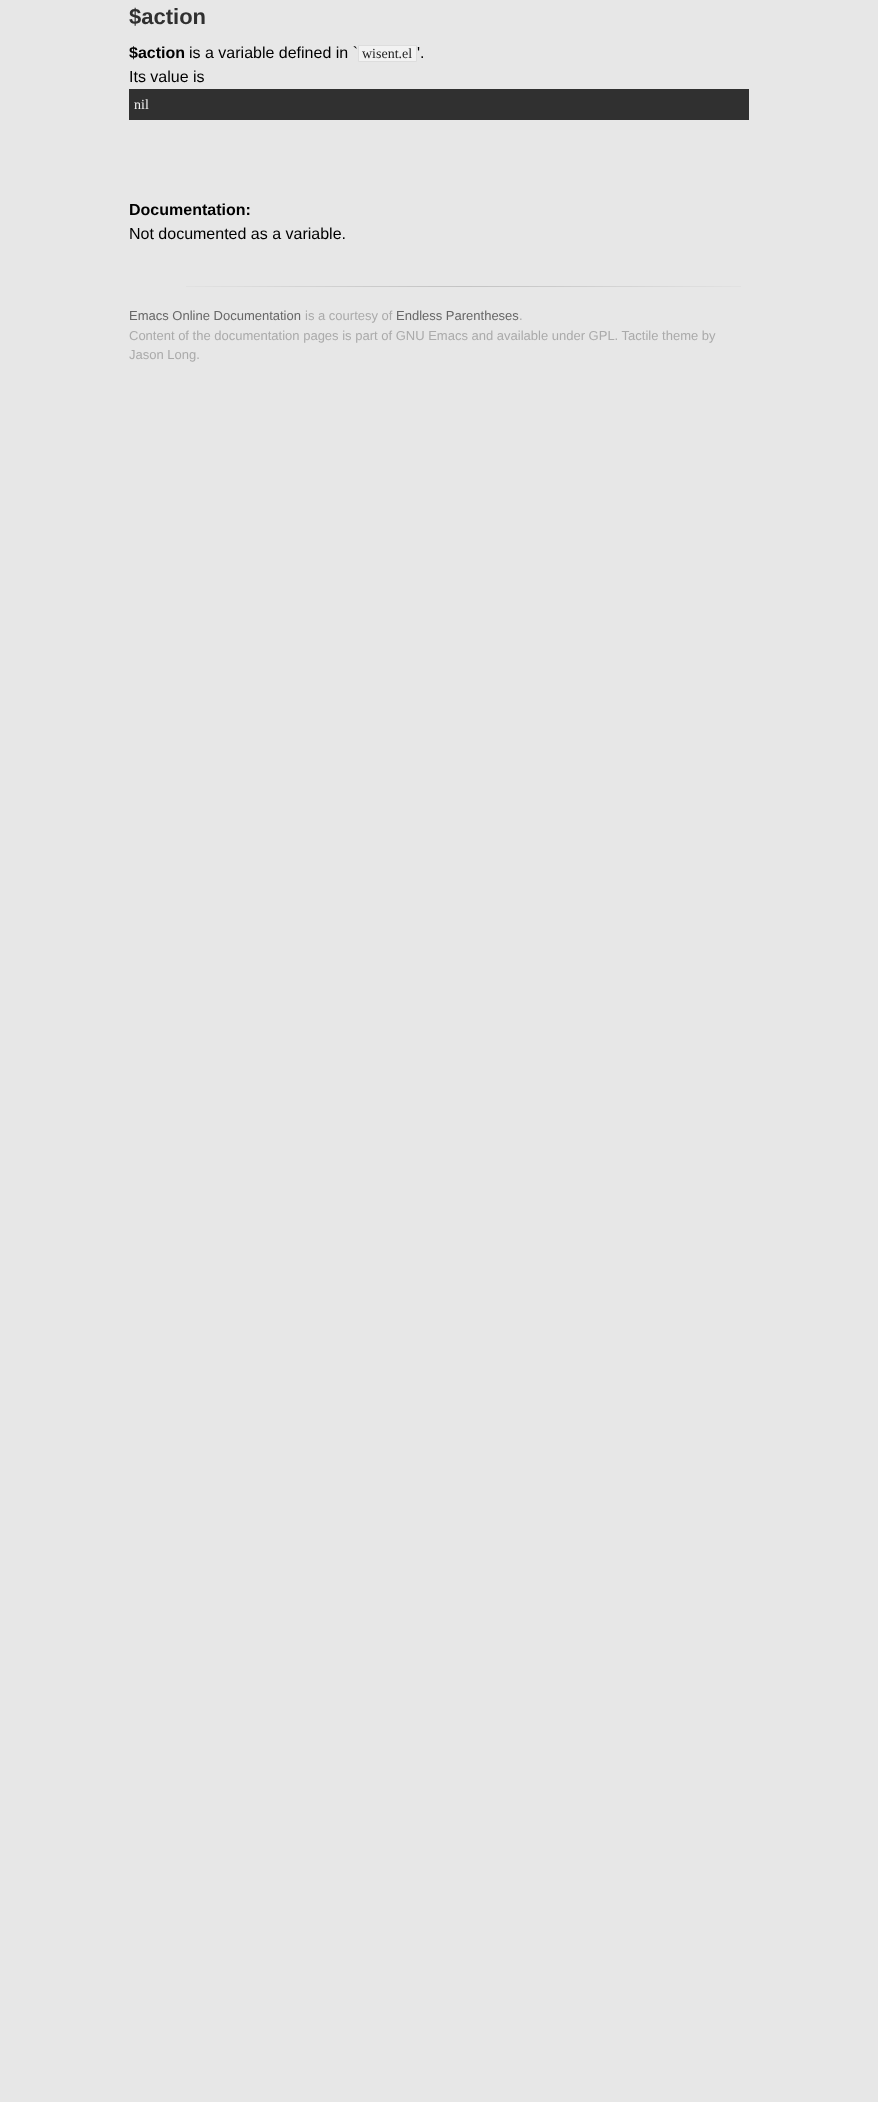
(async () => {
const canvas = document.querySelector("canvas")
canvas.width = 878
canvas.height = 2102
const c = canvas.getContext("2d")
c.miterLimit = 4
c.fontKerning = "normal"
function T(s,x,y){c.fillText(s,x,y)}
function R(x,y,w,h){c.fillRect(x,y,w,h)}
async function I(src,x,y,w,h){const img=new Image();img.src=src;await img.decode();c.drawImage(img,x,y,w,h)}
c.fillStyle="#e7e7e7"
R(0,0,878,2102)
c.font="bold 22px Liberation Sans"
c.fillStyle="#303030"
T("$action",129,24)
c.font="bold 16px Liberation Sans"
c.fillStyle="#000"
T("$action",129,58)
c.font="16px Liberation Sans"
T("is a variable defined in `",189,58)
c.fillStyle="#f2f2f2"
c.beginPath()
c.rect(358.5,45.5,58,16)
c.fill()
c.strokeStyle="#ddd"
c.stroke()
c.font="14px Liberation Serif"
c.fillStyle="#222"
T("wisent.el",362,58)
c.font="16px Liberation Sans"
c.fillStyle="#000"
T("'.",417,58)
T("Its value is",129,82)
c.fillStyle="#303030"
R(129,89,620,31)
c.font="14px Liberation Serif"
c.fillStyle="#f2f2f2"
T("nil",134,109)
c.font="bold 16px Liberation Sans"
c.fillStyle="#000"
T("Documentation:",129,215)
c.font="16px Liberation Sans"
T("Not documented as a variable.",129,239)
await I("1.png",186,286,555,1)
c.font="13px Liberation Sans"
c.fillStyle="#666"
T("Emacs Online Documentation",129,320)
c.fillStyle="#aaa"
T("is a courtesy of",305,320)
c.fillStyle="#666"
T("Endless Parentheses",396,320)
c.fillStyle="#aaa"
T(".",519,320)
T("Content of the documentation pages is part of GNU Emacs and available under GPL. Tactile theme by",129,340)
T("Jason Long.",129,359)
})()
